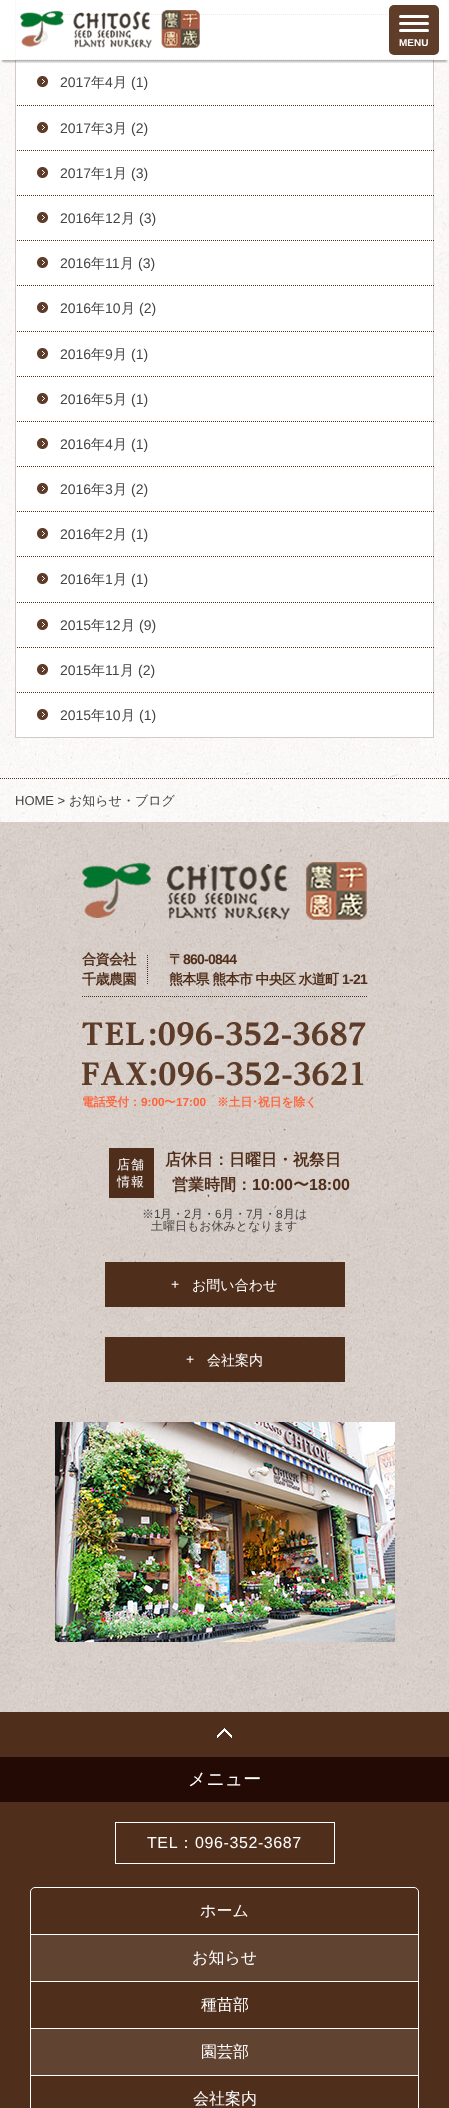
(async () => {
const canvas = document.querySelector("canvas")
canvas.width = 449
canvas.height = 2108
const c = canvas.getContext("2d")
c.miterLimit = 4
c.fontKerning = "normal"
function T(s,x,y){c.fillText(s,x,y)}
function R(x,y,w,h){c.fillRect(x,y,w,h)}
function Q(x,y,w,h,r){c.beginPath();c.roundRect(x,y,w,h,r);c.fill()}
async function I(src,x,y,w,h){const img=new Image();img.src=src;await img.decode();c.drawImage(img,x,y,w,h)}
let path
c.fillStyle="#fff"
R(0,0,449,2108)
await I("2.png",0,0,449,822)
R(16,0,417,737)
c.fillStyle="#d4cac5"
R(433,0,1,5)
path = new Path2D("M15 14.5h419")
c.strokeStyle="#4f2e1b"
c.setLineDash([1,1])
c.stroke(path)
R(15,0,1,15)
R(433,55,1,683)
path = new Path2D("M15 59.5h419")
c.stroke(path)
R(15,15,1,45)
await I("3.png",37,31,11,11)
path = new Path2D("M15 105.5h419")
c.stroke(path)
R(15,60,1,46)
c.save()
c.beginPath()
c.rect(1,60,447,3)
c.clip()
c.fillStyle="#0000004d"
c.filter="blur(1px)"
c.beginPath()
c.rect(2,6,445,56)
c.fill()
c.filter="none"
c.restore()
c.fillStyle="#ffffffe6"
R(0,0,449,60)
await I("1.png",20,10,180,38)
c.fillStyle="#603d29"
Q(389,5,50,50,5)
c.fillStyle="#fff"
Q(399,15,30,3,1.5)
Q(399,29,30,3,1.5)
Q(399,22,30,3,1.5)
c.font="bold 10px Liberation Sans"
T("MENU",399,46)
path = new Path2D("M0 778.5h449")
c.stroke(path)
await I("3.png",37,76,11,11)
c.font="14px Liberation Sans"
c.fillStyle="#444"
T("2017",60,87)
c.font="500 14px WenQuanYi Zen Hei"
T("年",91,87)
c.font="14px Liberation Sans"
T("4",105,87)
c.font="500 14px WenQuanYi Zen Hei"
T("月",113,87)
c.font="14px Liberation Sans"
T("(1)",131,87)
path = new Path2D("M15 150.5h419")
c.stroke(path)
c.fillStyle="#d4cac5"
R(15,106,1,45)
await I("3.png",37,122,11,11)
c.fillStyle="#444"
T("2017",60,133)
c.font="500 14px WenQuanYi Zen Hei"
T("年",91,133)
c.font="14px Liberation Sans"
T("3",105,133)
c.font="500 14px WenQuanYi Zen Hei"
T("月",113,133)
c.font="14px Liberation Sans"
T("(2)",131,133)
path = new Path2D("M15 195.5h419")
c.stroke(path)
c.fillStyle="#d4cac5"
R(15,151,1,45)
await I("3.png",37,167,11,11)
c.fillStyle="#444"
T("2017",60,178)
c.font="500 14px WenQuanYi Zen Hei"
T("年",91,178)
c.font="14px Liberation Sans"
T("1",105,178)
c.font="500 14px WenQuanYi Zen Hei"
T("月",113,178)
c.font="14px Liberation Sans"
T("(3)",131,178)
path = new Path2D("M15 240.5h419")
c.stroke(path)
c.fillStyle="#d4cac5"
R(15,196,1,45)
await I("3.png",37,212,11,11)
c.fillStyle="#444"
T("2016",60,223)
c.font="500 14px WenQuanYi Zen Hei"
T("年",91,223)
c.font="14px Liberation Sans"
T("12",105,223)
c.font="500 14px WenQuanYi Zen Hei"
T("月",121,223)
c.font="14px Liberation Sans"
T("(3)",139,223)
path = new Path2D("M15 285.5h419")
c.stroke(path)
c.fillStyle="#d4cac5"
R(15,241,1,45)
await I("3.png",37,257,11,11)
c.fillStyle="#444"
T("2016",60,268)
c.font="500 14px WenQuanYi Zen Hei"
T("年",91,268)
c.font="14px Liberation Sans"
T("11",105,268)
c.font="500 14px WenQuanYi Zen Hei"
T("月",120,268)
c.font="14px Liberation Sans"
T("(3)",138,268)
path = new Path2D("M15 331.5h419")
c.stroke(path)
c.fillStyle="#d4cac5"
R(15,286,1,46)
await I("3.png",37,302,11,11)
c.fillStyle="#444"
T("2016",60,313)
c.font="500 14px WenQuanYi Zen Hei"
T("年",91,313)
c.font="14px Liberation Sans"
T("10",105,313)
c.font="500 14px WenQuanYi Zen Hei"
T("月",121,313)
c.font="14px Liberation Sans"
T("(2)",139,313)
path = new Path2D("M15 376.5h419")
c.stroke(path)
c.fillStyle="#d4cac5"
R(15,332,1,45)
await I("3.png",37,348,11,11)
c.fillStyle="#444"
T("2016",60,359)
c.font="500 14px WenQuanYi Zen Hei"
T("年",91,359)
c.font="14px Liberation Sans"
T("9",105,359)
c.font="500 14px WenQuanYi Zen Hei"
T("月",113,359)
c.font="14px Liberation Sans"
T("(1)",131,359)
path = new Path2D("M15 421.5h419")
c.stroke(path)
c.fillStyle="#d4cac5"
R(15,377,1,45)
await I("3.png",37,393,11,11)
c.fillStyle="#444"
T("2016",60,404)
c.font="500 14px WenQuanYi Zen Hei"
T("年",91,404)
c.font="14px Liberation Sans"
T("5",105,404)
c.font="500 14px WenQuanYi Zen Hei"
T("月",113,404)
c.font="14px Liberation Sans"
T("(1)",131,404)
path = new Path2D("M15 466.5h419")
c.stroke(path)
c.fillStyle="#d4cac5"
R(15,422,1,45)
await I("3.png",37,438,11,11)
c.fillStyle="#444"
T("2016",60,449)
c.font="500 14px WenQuanYi Zen Hei"
T("年",91,449)
c.font="14px Liberation Sans"
T("4",105,449)
c.font="500 14px WenQuanYi Zen Hei"
T("月",113,449)
c.font="14px Liberation Sans"
T("(1)",131,449)
path = new Path2D("M15 511.5h419")
c.stroke(path)
c.fillStyle="#d4cac5"
R(15,467,1,45)
await I("3.png",37,483,11,11)
c.fillStyle="#444"
T("2016",60,494)
c.font="500 14px WenQuanYi Zen Hei"
T("年",91,494)
c.font="14px Liberation Sans"
T("3",105,494)
c.font="500 14px WenQuanYi Zen Hei"
T("月",113,494)
c.font="14px Liberation Sans"
T("(2)",131,494)
path = new Path2D("M15 556.5h419")
c.stroke(path)
c.fillStyle="#d4cac5"
R(15,512,1,45)
await I("3.png",37,528,11,11)
c.fillStyle="#444"
T("2016",60,539)
c.font="500 14px WenQuanYi Zen Hei"
T("年",91,539)
c.font="14px Liberation Sans"
T("2",105,539)
c.font="500 14px WenQuanYi Zen Hei"
T("月",113,539)
c.font="14px Liberation Sans"
T("(1)",131,539)
path = new Path2D("M15 602.5h419")
c.stroke(path)
c.fillStyle="#d4cac5"
R(15,557,1,46)
await I("3.png",37,573,11,11)
c.fillStyle="#444"
T("2016",60,584)
c.font="500 14px WenQuanYi Zen Hei"
T("年",91,584)
c.font="14px Liberation Sans"
T("1",105,584)
c.font="500 14px WenQuanYi Zen Hei"
T("月",113,584)
c.font="14px Liberation Sans"
T("(1)",131,584)
path = new Path2D("M15 647.5h419")
c.stroke(path)
c.fillStyle="#d4cac5"
R(15,603,1,45)
await I("3.png",37,619,11,11)
c.fillStyle="#444"
T("2015",60,630)
c.font="500 14px WenQuanYi Zen Hei"
T("年",91,630)
c.font="14px Liberation Sans"
T("12",105,630)
c.font="500 14px WenQuanYi Zen Hei"
T("月",121,630)
c.font="14px Liberation Sans"
T("(9)",139,630)
path = new Path2D("M15 692.5h419")
c.stroke(path)
c.fillStyle="#d4cac5"
R(15,648,1,45)
await I("3.png",37,664,11,11)
c.fillStyle="#444"
T("2015",60,675)
c.font="500 14px WenQuanYi Zen Hei"
T("年",91,675)
c.font="14px Liberation Sans"
T("11",105,675)
c.font="500 14px WenQuanYi Zen Hei"
T("月",120,675)
c.font="14px Liberation Sans"
T("(2)",138,675)
c.fillStyle="#d4cac5"
R(15,737,419,1)
R(15,693,1,45)
await I("3.png",37,709,11,11)
c.fillStyle="#444"
T("2015",60,720)
c.font="500 14px WenQuanYi Zen Hei"
T("年",91,720)
c.font="14px Liberation Sans"
T("10",105,720)
c.font="500 14px WenQuanYi Zen Hei"
T("月",121,720)
c.font="14px Liberation Sans"
T("(1)",139,720)
c.font="13px Liberation Sans"
T("HOME >",15,805)
c.font="500 13px WenQuanYi Zen Hei"
T("お知らせ・ブログ",69,805)
await I("4.png",0,822,449,890)
await I("5.png",82,862,285,58)
path = new Path2D("M82 996.5h285")
c.stroke(path)
c.letterSpacing="-0.5px"
c.font="bold 14px WenQuanYi Zen Hei"
c.fillStyle="#4f2e1b"
T("合資会社",82,964)
path = new Path2D("M147.5 955v30")
c.stroke(path)
T("千歳農園",82,984)
c.letterSpacing="-0.75px"
T("〒",169,964)
c.font="bold 14px Liberation Sans"
T("860-0844",183,964)
c.font="bold 14px WenQuanYi Zen Hei"
T("熊本県 熊本市 中央区 水道町",169,984)
c.font="bold 14px Liberation Sans"
T("1-21",342,984)
await I("6.png",82,1022,284,64)
c.letterSpacing="0px"
c.font="bold 11.75px WenQuanYi Zen Hei"
c.fillStyle="#ff633a"
T("電話受付：",82,1106)
c.font="bold 11.75px Liberation Sans"
T("9:00",141,1106)
c.font="bold 11.75px WenQuanYi Zen Hei"
T("〜",164,1106)
c.font="bold 11.75px Liberation Sans"
T("17:00",176,1106)
c.font="bold 11.75px WenQuanYi Zen Hei"
T("※土日",217,1106)
c.font="bold 11.75px IPAPGothic"
T("･",252,1106)
c.font="bold 11.75px WenQuanYi Zen Hei"
T("祝日を除く",258,1106)
c.fillStyle="#4f2e1b"
R(109,1148,45,50)
c.letterSpacing="1px"
c.font="500 13px WenQuanYi Zen Hei"
c.fillStyle="#fff"
T("店舗",117,1169)
T("情報",117,1186)
c.letterSpacing="0px"
c.font="bold 16px WenQuanYi Zen Hei"
c.fillStyle="#4f2e1b"
T("店休日：日曜日・祝祭日",165,1165)
T("営業時間：",172,1190)
c.font="bold 16px Liberation Sans"
T("10:00",252,1190)
c.font="bold 16px WenQuanYi Zen Hei"
T("〜",293,1190)
c.font="bold 16px Liberation Sans"
T("18:00",309,1190)
c.font="500 12px WenQuanYi Zen Hei"
c.fillStyle="#444"
T("※",142,1218)
c.font="12px Liberation Sans"
T("1",154,1218)
c.font="500 12px WenQuanYi Zen Hei"
T("月・",160,1218)
c.font="12px Liberation Sans"
T("2",184,1218)
c.font="500 12px WenQuanYi Zen Hei"
T("月・",191,1218)
c.font="12px Liberation Sans"
T("6",215,1218)
c.font="500 12px WenQuanYi Zen Hei"
T("月・",222,1218)
c.font="12px Liberation Sans"
T("7",246,1218)
c.font="500 12px WenQuanYi Zen Hei"
T("月・",252,1218)
c.font="12px Liberation Sans"
T("8",276,1218)
c.font="500 12px WenQuanYi Zen Hei"
T("月は",283,1218)
T("土曜日もお休みとなります",151,1230)
c.fillStyle="#4f2e1b"
R(105,1262,240,45)
c.font="14px Liberation Sans"
c.fillStyle="#fff"
T("+",171,1289)
c.font="500 14px WenQuanYi Zen Hei"
T("お問い合わせ",192,1290)
c.fillStyle="#4f2e1b"
R(105,1337,240,45)
c.font="14px Liberation Sans"
c.fillStyle="#fff"
T("+",186,1364)
c.font="500 14px WenQuanYi Zen Hei"
T("会社案内",207,1365)
await I("7.png",55,1422,340,220)
c.fillStyle="#4f2e1b"
R(0,1712,449,45)
await I("8.png",217,1728,15,10)
R(0,1802,449,306)
c.fillStyle="#230a05"
R(0,1757,449,45)
c.font="500 18px WenQuanYi Zen Hei"
c.fillStyle="#fff"
T("メニュー",188,1785)
c.strokeStyle="#fff"
c.setLineDash([])
c.strokeRect(115.5,1822.5,219,41)
c.letterSpacing="0.6px"
c.font="16px Liberation Sans"
T("TEL",147,1848)
c.font="500 16px WenQuanYi Zen Hei"
T("：",178,1848)
c.font="16px Liberation Sans"
T("096-352-3687",195,1848)
c.beginPath()
c.roundRect(30.5,1887.5,388,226,4.5)
c.stroke()
c.letterSpacing="0px"
c.font="500 16px WenQuanYi Zen Hei"
T("ホーム",200,1916)
c.fillStyle="#614332"
R(31,1935,387,46)
c.fillStyle="#fff"
R(31,1934,387,1)
T("お知らせ",192,1963)
R(31,1981,387,1)
T("種苗部",201,2010)
c.fillStyle="#614332"
R(31,2029,387,46)
c.fillStyle="#fff"
R(31,2028,387,1)
T("園芸部",201,2057)
R(31,2075,387,1)
T("会社案内",193,2104)
})()
